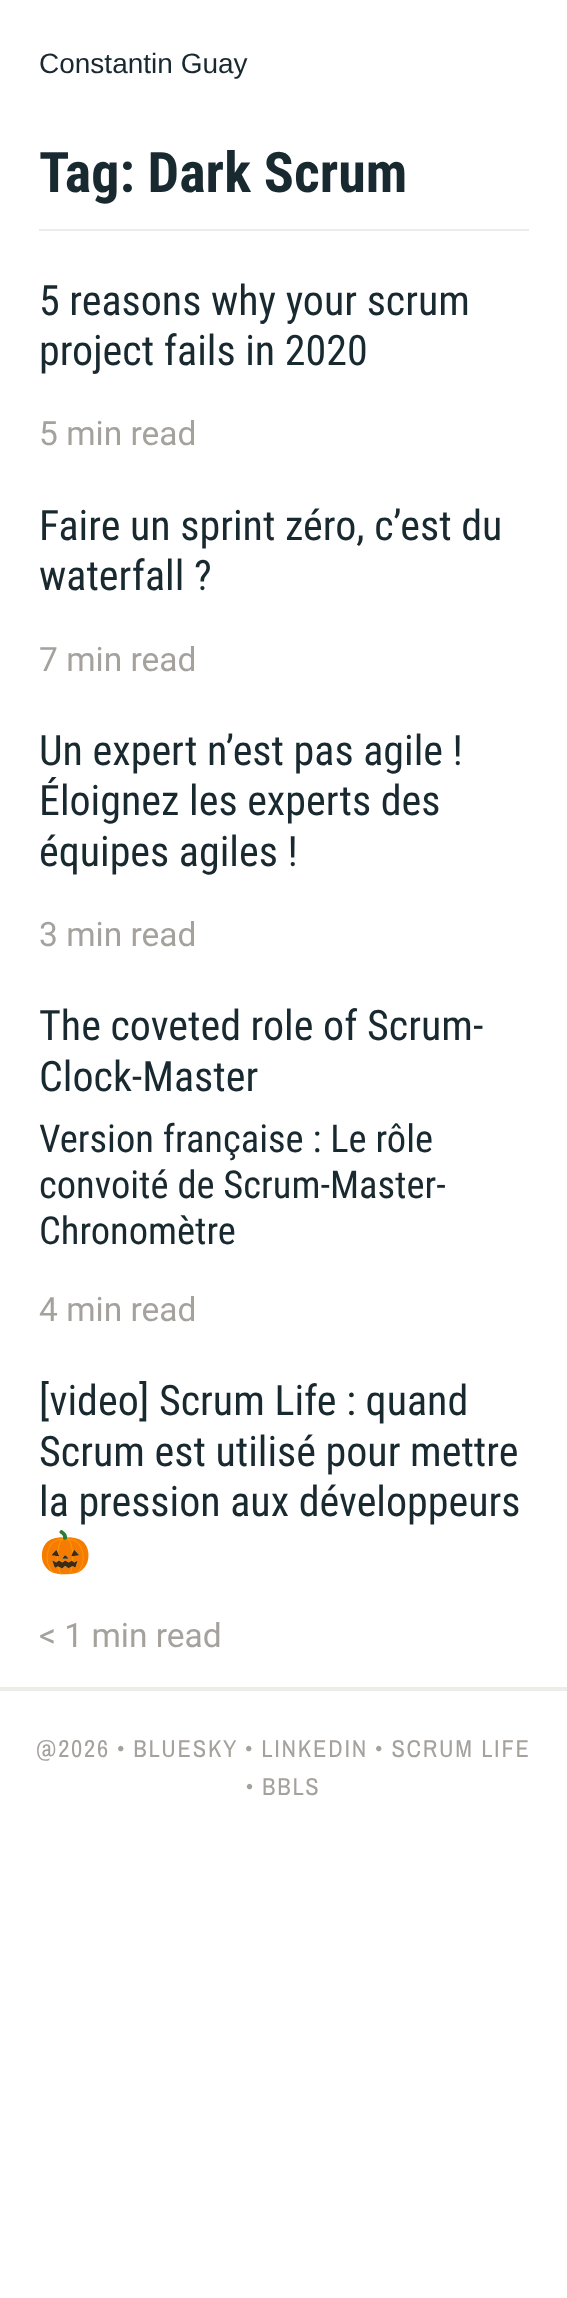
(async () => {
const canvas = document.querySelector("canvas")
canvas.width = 567
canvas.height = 2298
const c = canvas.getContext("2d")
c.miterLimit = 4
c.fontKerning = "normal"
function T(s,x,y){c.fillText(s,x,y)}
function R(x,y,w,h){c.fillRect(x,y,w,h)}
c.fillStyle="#fff"
R(0,0,567,2298)
c.font="28px Liberation Sans"
c.fillStyle="#192930"
T("Constantin Guay",39,73)
c.fillStyle="#eeece8"
R(39,229,490,2)
c.font="bold 56px Roboto Condensed"
c.fillStyle="#192930"
T("Tag: Dark Scrum",39,192)
c.font="42px Roboto Condensed"
T("5 reasons why your scrum",39,315)
T("project fails in 2020",39,365)
c.font="33.5px Roboto"
c.fillStyle="#a5a29d"
T("5 min read",39,445)
c.font="42px Roboto Condensed"
c.fillStyle="#192930"
T("Faire un sprint zéro, c’est du",39,540)
T("waterfall ?",39,590)
c.font="33.5px Roboto"
c.fillStyle="#a5a29d"
T("7 min read",39,671)
c.font="42px Roboto Condensed"
c.fillStyle="#192930"
T("Un expert n’est pas agile !",39,765)
T("Éloignez les experts des",39,815)
T("équipes agiles !",39,866)
c.font="33.5px Roboto"
c.fillStyle="#a5a29d"
T("3 min read",39,946)
c.font="42px Roboto Condensed"
c.fillStyle="#192930"
T("The coveted role of Scrum-",39,1040)
T("Clock-Master",39,1091)
c.font="38.5px Roboto Condensed"
T("Version française : Le rôle",39,1152)
T("convoité de Scrum-Master-",39,1198)
T("Chronomètre",39,1244)
c.font="33.5px Roboto"
c.fillStyle="#a5a29d"
T("4 min read",39,1321)
c.font="42px Roboto Condensed"
c.fillStyle="#192930"
T("[video] Scrum Life : quand",39,1415)
T("Scrum est utilisé pour mettre",39,1466)
T("la pression aux développeurs",39,1516)
c.font="42px Noto Color Emoji"
T("🎃",39,1567)
c.font="33.5px Roboto"
c.fillStyle="#a5a29d"
T("< 1 min read",39,1647)
c.fillStyle="#eeece8"
R(0,1687,567,4)
c.letterSpacing="1.75px"
c.font="24.5px Archivo Narrow"
c.fillStyle="#a5a29d"
T("@2026 • BLUESKY • LINKEDIN • SCRUM LIFE",36,1757)
T("• BBLS",246,1795)
})()
